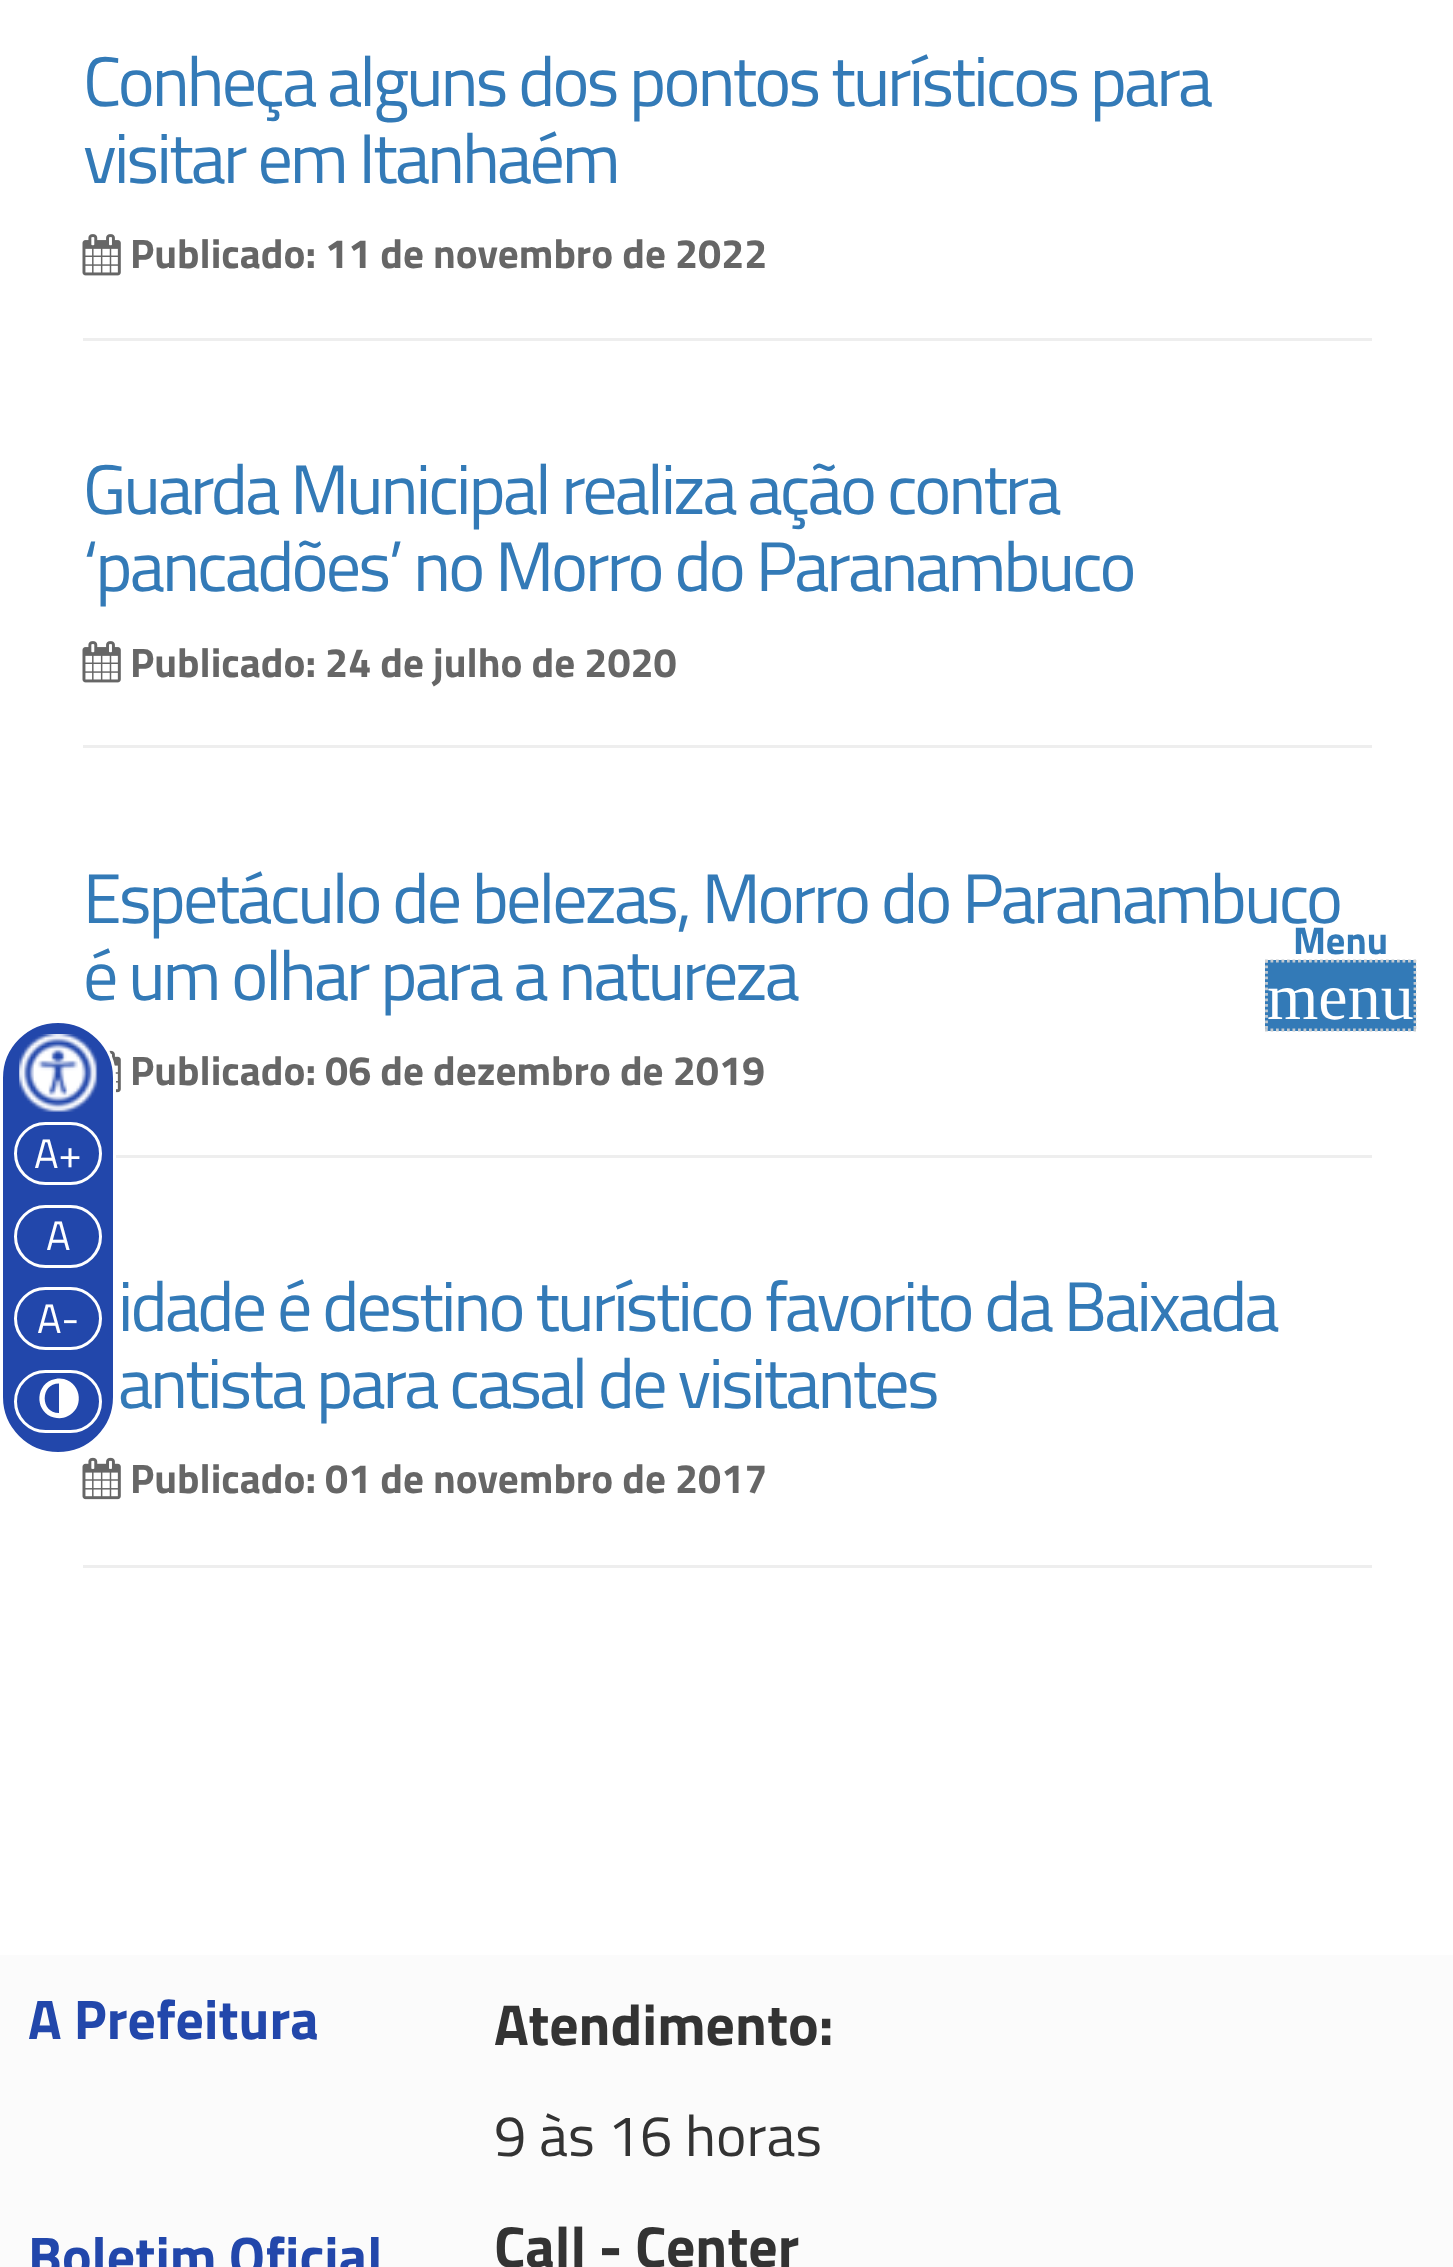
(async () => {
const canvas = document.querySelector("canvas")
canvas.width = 1453
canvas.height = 2267
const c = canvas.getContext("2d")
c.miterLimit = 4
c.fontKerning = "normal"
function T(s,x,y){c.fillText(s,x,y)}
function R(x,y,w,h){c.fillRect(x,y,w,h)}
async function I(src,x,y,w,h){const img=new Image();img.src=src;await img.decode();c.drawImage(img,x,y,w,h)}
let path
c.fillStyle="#fff"
R(0,0,1453,2267)
c.letterSpacing="-2.75px"
c.font="70.1px Titillium Web"
c.fillStyle="#337ab7"
T("Conheça alguns dos pontos turísticos para",83,106)
T("visitar em Itanhaém",83,183)
await I("1.png",82,234,39,42)
c.letterSpacing="0px"
c.font="bold 41.25px Titillium Web"
c.fillStyle="#666"
T("Publicado: 11 de novembro de 2022",130,268)
c.fillStyle="#eee"
R(83,338,1289,3)
c.letterSpacing="-2.75px"
c.font="70.1px Titillium Web"
c.fillStyle="#337ab7"
T("Guarda Municipal realiza ação contra",83,514)
T("‘pancadões’ no Morro do Paranambuco",83,591)
await I("1.png",82,641,39,42)
c.letterSpacing="0px"
c.font="bold 41.25px Titillium Web"
c.fillStyle="#666"
T("Publicado: 24 de julho de 2020",130,677)
c.fillStyle="#eee"
R(83,745,1289,3)
c.letterSpacing="-2.75px"
c.font="70.1px Titillium Web"
c.fillStyle="#337ab7"
T("Espetáculo de belezas, Morro do Paranambuco",83,923)
T("é um olhar para a natureza",83,1000)
await I("2.png",109,1050,12,43)
c.letterSpacing="0px"
c.font="bold 41.25px Titillium Web"
c.fillStyle="#666"
T("Publicado: 06 de dezembro de 2019",130,1085)
c.fillStyle="#eee"
R(116,1155,1256,3)
c.letterSpacing="-2.75px"
c.font="70.1px Titillium Web"
c.fillStyle="#337ab7"
T("idade é destino turístico favorito da Baixada",118,1331)
T("antista para casal de visitantes",118,1408)
await I("3.png",82,1457,39,43)
c.letterSpacing="0px"
c.font="bold 41.25px Titillium Web"
c.fillStyle="#666"
T("Publicado: 01 de novembro de 2017",130,1493)
c.fillStyle="#eee"
R(83,1565,1289,3)
c.font="bold 38.5px Titillium Web"
c.fillStyle="#337ab7"
T("Menu",1293,954)
R(1265,960,151,71)
path = new Path2D("M1265 961h151")
c.strokeStyle="#c3cad0"
c.lineWidth=2.8
c.setLineDash([2.75,2.75])
c.stroke(path)
path = new Path2D("M1415 960v71")
c.strokeStyle="#d3d3d3e6"
c.stroke(path)
path = new Path2D("M1265 1030h151")
c.strokeStyle="#c3cad0"
c.stroke(path)
path = new Path2D("M1266.5 960v71")
c.strokeStyle="#d3d3d3e6"
c.stroke(path)
c.font="66px Liberation Serif"
c.fillStyle="#fff"
T("menu",1267,1019)
c.fillStyle="#2247ab"
c.beginPath()
c.roundRect(1.5,1021.5,113,432,56.5)
c.fill()
c.strokeStyle="#fff"
c.lineWidth=3
c.setLineDash([])
c.stroke()
await I("4.png",19,1034,79,78)
c.beginPath()
c.roundRect(15.5,1123.5,85,60,30)
c.stroke()
c.font="41.25px Titillium Web"
c.fillStyle="#fff"
T("A+",34,1168)
c.beginPath()
c.roundRect(15.5,1206.5,85,60,30)
c.stroke()
T("A",46,1250)
c.beginPath()
c.roundRect(15.5,1288.5,85,60,30)
c.stroke()
T("A-",37,1333)
c.beginPath()
c.roundRect(15.5,1371.5,85,60,30)
c.stroke()
path = new Path2D("M51.5 1380c4-1.5 8.5-2 12.5-1c18.5 5 20 30.5 3 37.5c-4 2-8.5 2-13 1c-18-4.5-20-30-2.5-37.5zm7.5 33v-29.5c-19 0-19 29.5 0 29.5z")
c.fill(path)
c.fillStyle="#fbfbfb"
R(0,1955,1453,312)
c.font="bold 55.75px Titillium Web"
c.fillStyle="#2247ab"
T("A Prefeitura",28,2039)
T("Boletim Oficial",28,2276)
c.font="bold 57.75px Titillium Web"
c.fillStyle="#333"
T("Atendimento:",494,2045)
c.font="57.75px Titillium Web"
T("9 às 16 horas",494,2156)
c.font="bold 57.75px Titillium Web"
T("Call - Center",494,2267)
})()
